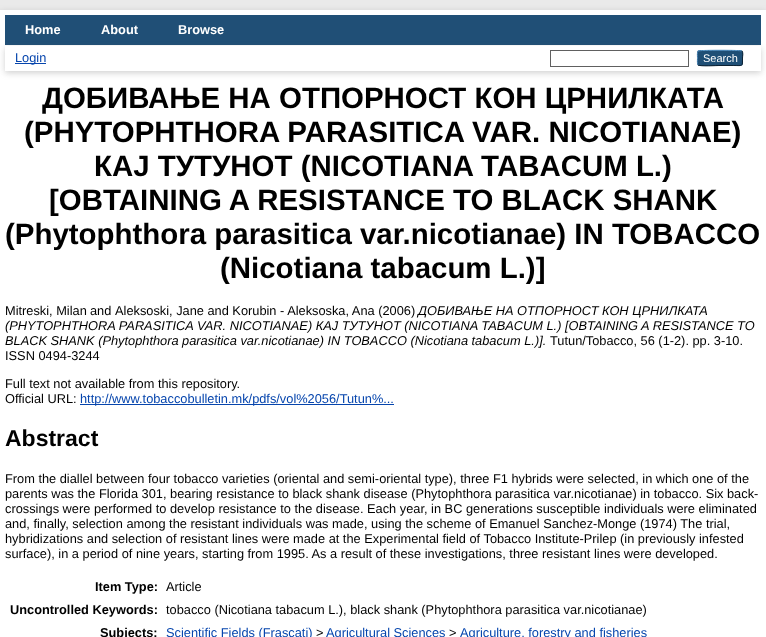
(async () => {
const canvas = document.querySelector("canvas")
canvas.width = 766
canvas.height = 637
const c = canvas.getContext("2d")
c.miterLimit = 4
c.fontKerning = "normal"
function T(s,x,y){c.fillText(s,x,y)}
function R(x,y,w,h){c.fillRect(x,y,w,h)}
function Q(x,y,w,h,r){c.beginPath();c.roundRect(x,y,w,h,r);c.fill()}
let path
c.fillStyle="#eaeaea"
R(0,0,766,637)
c.fillStyle="#6464644d"
c.filter="blur(3px)"
c.beginPath()
c.rect(0,12,766,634)
c.fill()
c.filter="none"
c.fillStyle="#fff"
R(0,10,766,627)
c.fillStyle="#204f76"
R(5,15,756,30)
c.font="bold 12.8px Liberation Sans"
c.fillStyle="#fff"
T("Home",25,34)
T("About",101,34)
T("Browse",178,34)
c.fillStyle="#6464644d"
c.filter="blur(3px)"
c.beginPath()
c.rect(5,48,756,25)
c.fill()
c.filter="none"
c.fillStyle="#fff"
R(5,46,756,25)
c.fillStyle="#0645ad"
R(15,63,31,1)
c.font="12.8px Liberation Sans"
T("Login",15,62)
c.strokeStyle="#606060"
c.strokeRect(550.5,50.5,138,16)
c.fillStyle="#1f4f76"
Q(697,50,46,16,3)
path = new Path2D("M698 51c1.5-1 42.5-1 44 0")
c.strokeStyle="#5b97c7"
c.stroke(path)
path = new Path2D("M742 51c1.5 2 .5 5 .5 7c0 9 .5 7.5-9 7.5h-13.5c-3.5 0-20 1-22-.5")
c.strokeStyle="#0d2131"
c.stroke(path)
path = new Path2D("M698 65c-1-1.5-.5-5.5-.5-7c0-1.5-.5-5.5 .5-7")
c.strokeStyle="#5287b3"
c.stroke(path)
c.font="11px Liberation Sans"
c.fillStyle="#fff"
T("Search",703,62)
c.font="bold 29.45px Liberation Sans"
c.fillStyle="#000"
T("ДОБИВАЊЕ НА ОТПОРНОСТ КОН ЦРНИЛКАТА",42,108)
T("(PHYTOPHTHORA PARASITICA VAR. NICOTIANAE)",24,142)
T("КАЈ ТУТУНОТ (NICOTIANA TABACUM L.)",94,176)
T("[OBTAINING A RESISTANCE TO BLACK SHANK",49,210)
T("(Phytophthora parasitica var.nicotianae) IN TOBACCO",5,244)
T("(Nicotiana tabacum L.)]",220,278)
c.font="12.8px Liberation Sans"
T("Mitreski, Milan",5,315)
T("and",90,315)
T("Aleksoski, Jane and Korubin - Aleksoska, Ana (2006)",115,315)
c.font="italic 12.8px Liberation Sans"
T("ДОБИВАЊЕ НА ОТПОРНОСТ КОН ЦРНИЛКАТА",418,315)
T("(PHYTOPHTHORA PARASITICA VAR. NICOTIANAE) КАЈ ТУТУНОТ (NICOTIANA TABACUM L.) [OBTAINING A RESISTANCE TO",5,330)
T("BLACK SHANK (Phytophthora parasitica var.nicotianae) IN TOBACCO (Nicotiana tabacum L.)].",5,345)
c.font="12.8px Liberation Sans"
T("Tutun/Tobacco, 56 (1-2). pp. 3-10.",550,345)
T("ISSN 0494-3244",5,360)
T("Full text not available from this repository.",5,388)
T("Official URL:",5,403)
c.fillStyle="#0645ad"
R(80,404,314,1)
T("http://www.tobaccobulletin.mk/pdfs/vol%2056/Tutun%...",80,403)
c.font="bold 23px Liberation Sans"
c.fillStyle="#000"
T("Abstract",5,446)
c.font="12.8px Liberation Sans"
T("From the diallel between four tobacco varieties (oriental and semi-oriental type), three F1 hybrids were selected, in which one of the",5,483)
T("parents was the Florida 301, bearing resistance to black shank disease (Phytophthora parasitica var.nicotianae) in tobacco. Six back-",5,498)
T("crossings were performed to develop resistance to the disease. Each year, in BC generations susceptible individuals were eliminated",5,513)
T("and, finally, selection among the resistant individuals was made, using the scheme of Emanuel Sanchez-Monge (1974) The trial,",5,528)
T("hybridizations and selection of resistant lines were made at the Experimental field of Tobacco Institute-Prilep (in previously infested",5,543)
T("surface), in a period of nine years, starting from 1995. As a result of these investigations, three resistant lines were developed.",5,558)
c.font="bold 12.8px Liberation Sans"
T("Item Type:",95,591)
c.font="12.8px Liberation Sans"
T("Article",166,591)
c.font="bold 12.8px Liberation Sans"
T("Uncontrolled Keywords:",10,614)
c.font="12.8px Liberation Sans"
T("tobacco (Nicotiana tabacum L.), black shank (Phytophthora parasitica var.nicotianae)",166,614)
c.font="bold 12.8px Liberation Sans"
T("Subjects:",100,637)
c.font="12.8px Liberation Sans"
c.fillStyle="#0645ad"
T("Scientific Fields (Frascati)",166,637)
c.fillStyle="#000"
T(">",316,637)
c.fillStyle="#0645ad"
T("Agricultural Sciences",326,637)
c.fillStyle="#000"
T(">",449,637)
c.fillStyle="#0645ad"
T("Agriculture, forestry and fisheries",460,637)
})()
